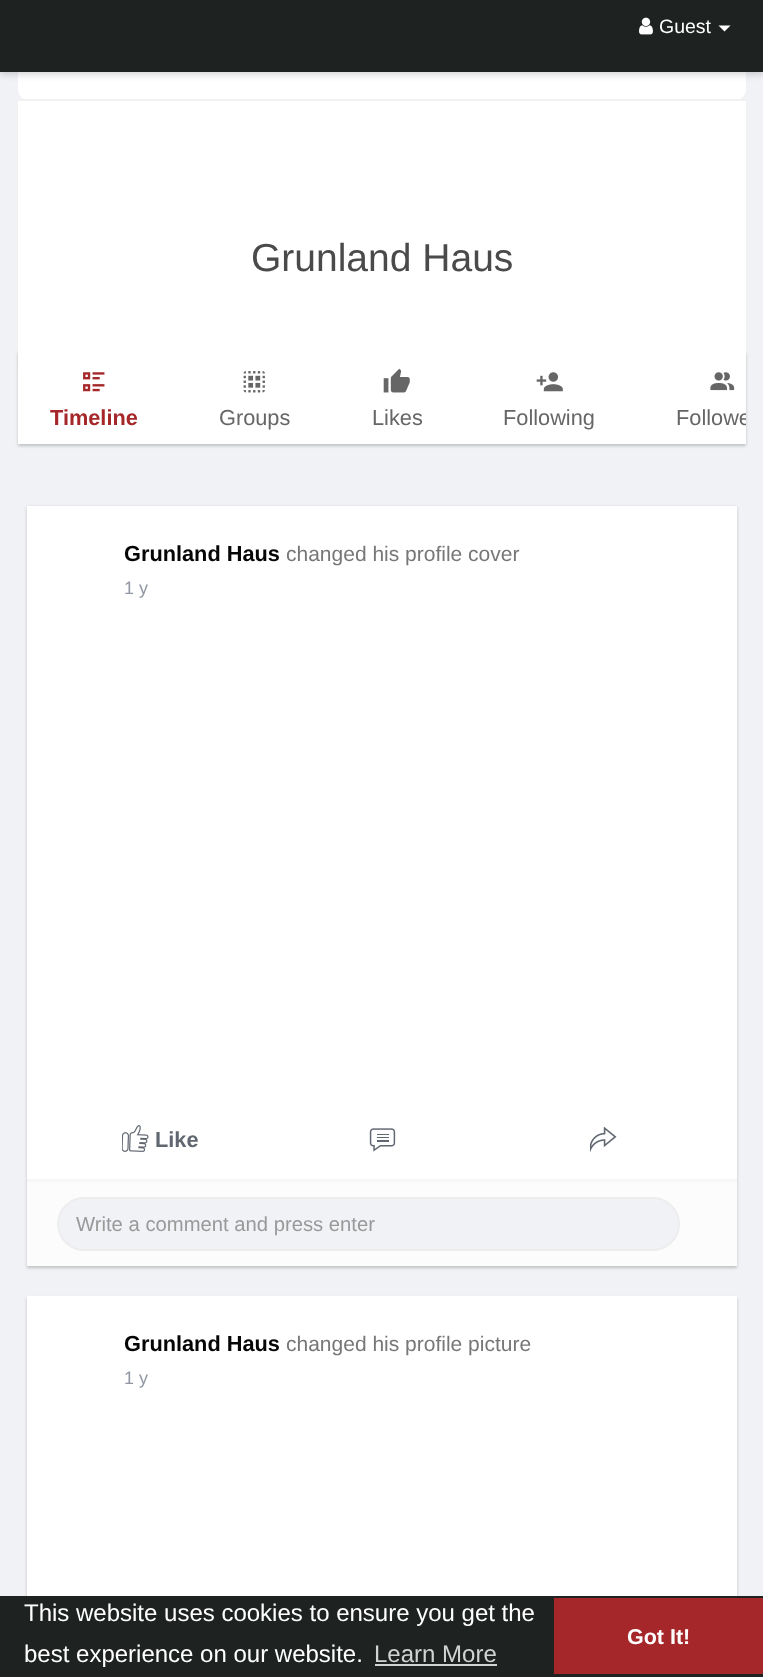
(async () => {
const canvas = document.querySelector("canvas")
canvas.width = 763
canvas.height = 1677
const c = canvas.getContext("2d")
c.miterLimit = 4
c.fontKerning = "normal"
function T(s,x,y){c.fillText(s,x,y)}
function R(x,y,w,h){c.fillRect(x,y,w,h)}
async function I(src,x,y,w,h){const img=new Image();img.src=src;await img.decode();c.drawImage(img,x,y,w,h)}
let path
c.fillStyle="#f0f2f5"
R(0,0,763,1677)
c.fillStyle="#fff"
c.beginPath()
c.roundRect(18,68,728,33,[0,0,12,12])
c.fill()
c.fillStyle="#00000026"
c.filter="blur(3px)"
c.beginPath()
c.rect(0,3,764,72)
c.fill()
c.filter="none"
c.fillStyle="#1e2321"
R(0,0,763,72)
await I("1.png",639,17,14,18)
c.font="19.5px Liberation Sans"
c.fillStyle="#fff"
T("Guest",659,33)
path = new Path2D("M718.5 25.5h12l-6 6z")
c.fill(path)
c.strokeStyle="#f1f1f1"
c.lineWidth=2
c.strokeRect(18,100,728,271)
R(18,101,728,250)
c.font="39px Liberation Sans"
c.fillStyle="#4a4a4a"
T("Grunland Haus",251,271)
c.fillStyle="#00000033"
c.filter="blur(1.5px)"
c.beginPath()
c.rect(18,353,728,93)
c.fill()
c.filter="none"
c.fillStyle="#fff"
R(18,351,728,93)
await I("2.png",83,372,22,20)
c.font="bold 21.75px Liberation Sans"
c.fillStyle="#a52729"
T("Timeline",50,425)
await I("3.png",243,371,22,22)
c.font="21.75px Liberation Sans"
c.fillStyle="#666"
T("Groups",219,425)
await I("4.png",383,368,27,25)
T("Likes",372,425)
await I("5.png",536,372,27,20)
T("Following",503,425)
await I("6.png",710,372,25,19)
c.save()
c.beginPath()
c.rect(18,351,728,95)
c.clip()
T("Followe",676,425)
c.restore()
c.fillStyle="#00000033"
c.filter="blur(1.5px)"
c.beginPath()
c.rect(27,507,710,761)
c.fill()
c.filter="none"
c.fillStyle="#fff"
R(27,506,710,673)
c.font="bold 21.75px Liberation Sans"
c.fillStyle="#050505"
T("Grunland Haus",124,561)
c.font="21px Liberation Sans"
c.fillStyle="#777"
T("changed his profile cover",286,561)
c.font="18px Liberation Sans"
c.fillStyle="#9197a3"
T("1 y",124,594)
await I("7.png",122,1125,27,27)
c.font="bold 21.75px Liberation Sans"
c.fillStyle="#616770"
T("Like",155,1147)
await I("8.png",369,1128,27,24)
await I("9.png",590,1127,27,26)
c.fillStyle="#fcfcfc"
R(27,1183,710,83)
c.fillStyle="#f6f6f6"
R(27,1179,710,2)
c.fillStyle="#f9f9f9"
R(27,1181,710,2)
c.fillStyle="#f0f2f5"
c.beginPath()
c.roundRect(58,1198,621,52,26)
c.fill()
c.strokeStyle="#ededed"
c.stroke()
c.font="20.25px Liberation Sans"
c.fillStyle="#999"
T("Write a comment and press enter",76,1231)
c.fillStyle="#00000033"
c.filter="blur(1.5px)"
c.beginPath()
c.rect(27,1298,710,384)
c.fill()
c.filter="none"
c.fillStyle="#fff"
R(27,1296,710,300)
c.font="bold 21.75px Liberation Sans"
c.fillStyle="#050505"
T("Grunland Haus",124,1351)
c.font="21px Liberation Sans"
c.fillStyle="#777"
T("changed his profile picture",286,1351)
c.font="18px Liberation Sans"
c.fillStyle="#9197a3"
T("1 y",124,1384)
c.fillStyle="#1e2321"
R(0,1596,763,81)
c.font="24px Liberation Sans"
c.fillStyle="#fff"
T("This website uses cookies to ensure you get the",24,1621)
T("best experience on our website.",24,1662)
c.fillStyle="#d2d3d3"
T("Learn More",374,1662)
R(375,1664,122,2)
c.fillStyle="#a52729"
R(554,1598,209,76)
c.font="bold 21.5px Liberation Sans"
c.fillStyle="#fff"
T("Got It!",627,1644)
})()
